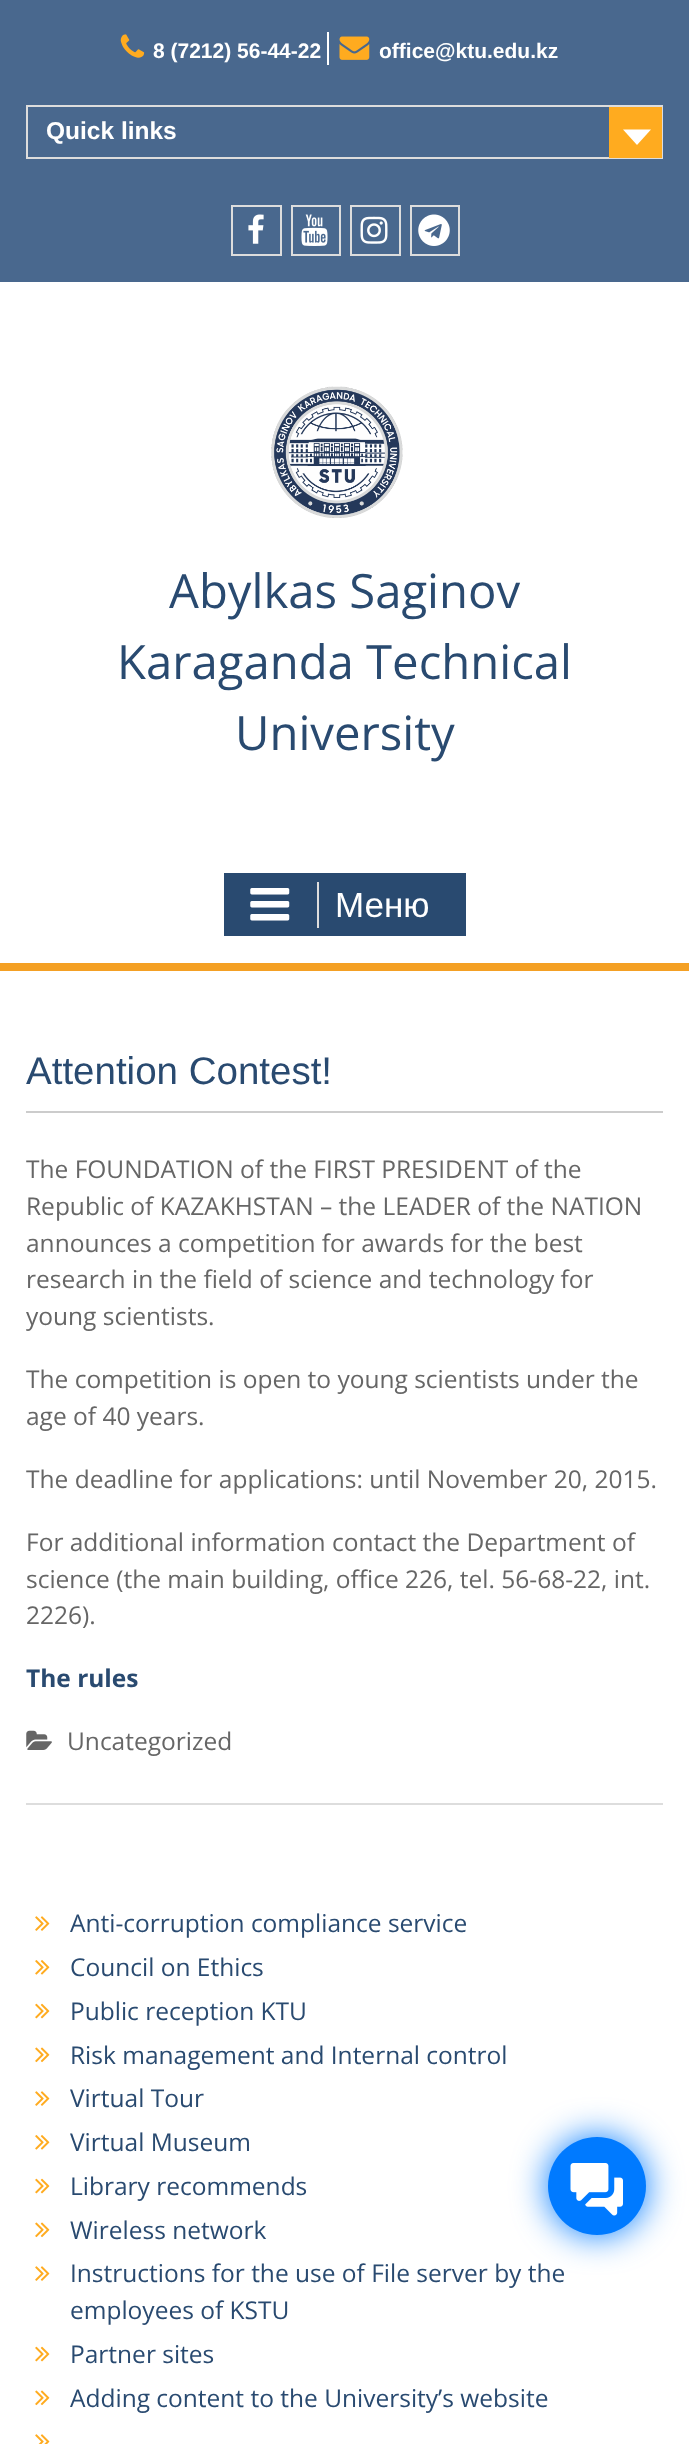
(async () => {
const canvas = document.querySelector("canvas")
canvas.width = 689
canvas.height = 2444
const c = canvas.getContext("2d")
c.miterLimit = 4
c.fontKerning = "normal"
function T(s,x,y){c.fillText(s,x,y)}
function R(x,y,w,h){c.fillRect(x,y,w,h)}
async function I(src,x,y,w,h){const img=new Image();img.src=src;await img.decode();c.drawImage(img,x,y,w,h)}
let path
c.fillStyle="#fff"
R(0,0,689,2444)
c.fillStyle="#49688e"
R(0,0,689,282)
await I("1.png",120,34,25,24)
c.font="bold 21px Liberation Sans"
c.fillStyle="#fff"
T("8 (7212) 56-44-22",153,58)
R(327,32,2,33)
await I("2.png",339,36,31,24)
T("office@ktu.edu.kz",379,58)
c.strokeStyle="#ddd"
c.lineWidth=2
c.strokeRect(27,106,635,52)
c.font="bold 24.5px Liberation Sans"
T("Quick links",46,139)
c.fillStyle="#ffab1f"
R(609,107,53,51)
c.fillStyle="#fff"
path = new Path2D("M623 129.5h28l-14 15.5z")
c.fill(path)
c.strokeRect(232,206,49,49)
await I("3.png",248,214,16,30)
c.strokeRect(292,206,48,49)
await I("4.png",301,214,27,32)
c.strokeRect(351,206,49,49)
await I("5.png",360,216,28,28)
c.strokeRect(411,206,48,49)
await I("6.png",418,214,32,32)
await I("7.png",271,386,132,132)
c.font="47.25px Open Sans"
c.fillStyle="#294a70"
T("Abylkas Saginov",169,608)
T("Karaganda Technical",117,679)
T("University",235,750)
c.fillStyle="#f4a024"
R(0,963,689,8)
c.fillStyle="#294a70"
R(224,873,242,63)
c.fillStyle="#ddd"
R(317,882,2,46)
await I("8.png",250,888,40,33)
c.font="35px Liberation Sans"
c.fillStyle="#fff"
T("Меню",335,917)
c.fillStyle="#ddd"
R(26,1803,637,2)
c.font="38.5px Liberation Sans"
c.fillStyle="#294a70"
T("Attention Contest!",26,1084)
c.fillStyle="#ccc"
R(26,1111,637,2)
c.font="24.5px Open Sans"
c.fillStyle="#666"
T("The FOUNDATION of the FIRST PRESIDENT of the",26,1178)
T("Republic of KAZAKHSTAN – the LEADER of the NATION",26,1215)
T("announces a competition for awards for the best",26,1252)
T("research in the field of science and technology for",26,1288)
T("young scientists.",26,1325)
T("The competition is open to young scientists under the",26,1388)
T("age of 40 years.",26,1425)
T("The deadline for applications: until November 20, 2015.",26,1488)
T("For additional information contact the Department of",26,1551)
T("science (the main building, office 226, tel. 56-68-22, int.",26,1588)
T("2226).",26,1624)
c.font="bold 24.5px Open Sans"
c.fillStyle="#294a70"
T("The rules",26,1687)
await I("9.png",26,1730,26,20)
c.font="24.5px Open Sans"
c.fillStyle="#666"
T("Uncategorized",67,1750)
await I("10.png",35,1916,15,15)
c.fillStyle="#294a70"
T("Anti-corruption compliance service",70,1932)
await I("11.png",35,1960,15,15)
T("Council on Ethics",70,1976)
await I("12.png",35,2003,15,16)
T("Public reception KTU",70,2020)
await I("13.png",35,2047,15,16)
T("Risk management and Internal control",70,2064)
await I("10.png",35,2091,15,15)
T("Virtual Tour",70,2107)
await I("11.png",35,2135,15,15)
T("Virtual Museum",70,2151)
await I("12.png",35,2178,15,16)
T("Library recommends",70,2195)
await I("13.png",35,2222,15,16)
T("Wireless network",70,2239)
await I("10.png",35,2266,15,15)
T("Instructions for the use of File server by the",70,2282)
T("employees of KSTU",70,2319)
await I("12.png",35,2346,15,16)
T("Partner sites",70,2363)
await I("13.png",35,2390,15,16)
T("Adding content to the University’s website",70,2407)
await I("14.png",35,2434,15,10)
c.fillStyle="#007aff"
c.filter="blur(17.5px)"
c.beginPath()
c.roundRect(548,2137,98,98,49)
c.fill()
c.filter="none"
c.beginPath()
c.arc(597,2186,49,0,7)
c.fill()
await I("15.png",570,2163,53,53)
})()
